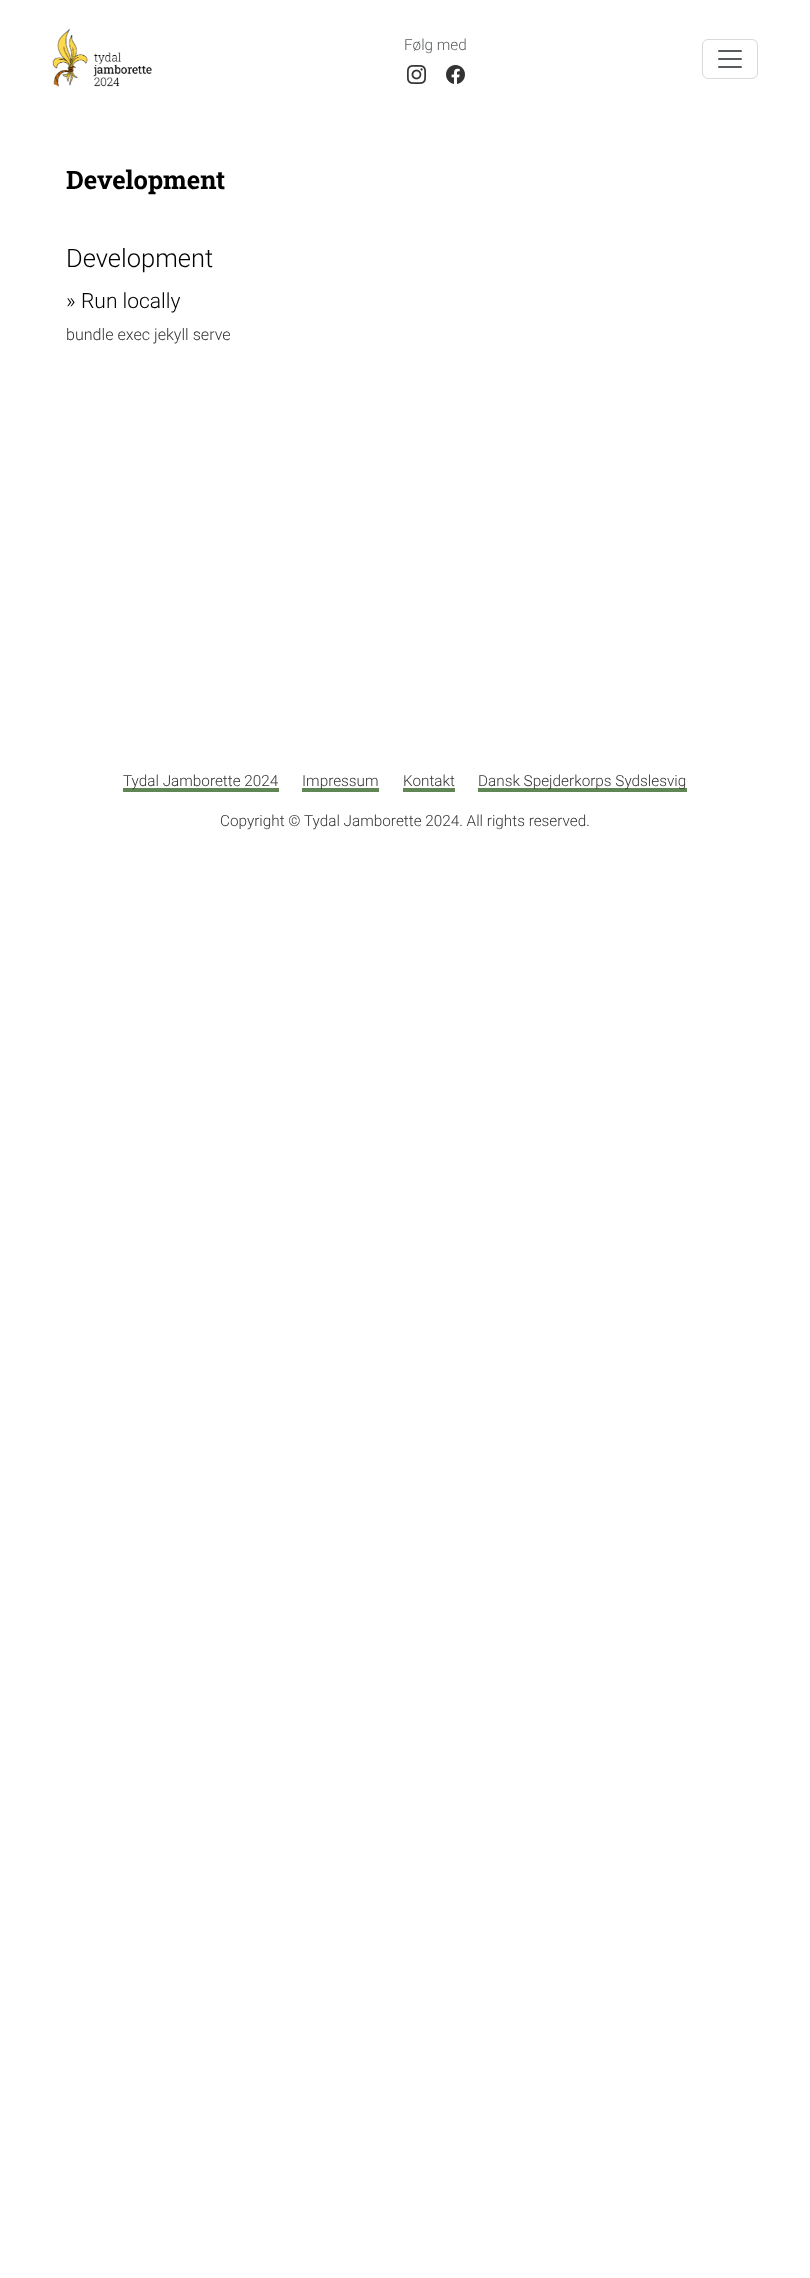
(async () => {
const canvas = document.querySelector("canvas")
canvas.width = 810
canvas.height = 2278
const c = canvas.getContext("2d")
c.miterLimit = 4
c.fontKerning = "normal"
function T(s,x,y){c.fillText(s,x,y)}
function R(x,y,w,h){c.fillRect(x,y,w,h)}
async function I(src,x,y,w,h){const img=new Image();img.src=src;await img.decode();c.drawImage(img,x,y,w,h)}
c.fillStyle="#fff"
R(0,0,810,2278)
await I("1.png",52,29,100,58)
c.font="300 15.3px Roboto"
c.fillStyle="#595c5f"
T("Følg med",404,50)
await I("2.png",407,65,19,19)
await I("3.png",446,65,19,19)
c.beginPath()
c.roundRect(702.5,39.5,55,39,5.5)
c.strokeStyle="#d9d9d9"
c.stroke()
await I("4.png",718,50,24,18)
c.font="bold 25.5px Roboto Slab"
c.fillStyle="#000"
T("Development",66,189)
c.font="300 25.5px Roboto"
T("Development",66,267)
c.font="300 21px Roboto"
T("»",66,308)
T("Run locally",81,308)
c.font="300 16.1px Roboto"
c.fillStyle="#333"
T("bundle exec jekyll serve",66,340)
c.fillStyle="#608655"
R(123,788,156,4)
c.font="300 15.3px Roboto"
c.fillStyle="#333"
T("Tydal Jamborette 2024",123,786)
c.fillStyle="#608655"
R(302,788,77,4)
c.fillStyle="#333"
T("Impressum",302,786)
T("Kontakt",403,786)
c.fillStyle="#608655"
R(403,788,52,4)
R(478,788,209,4)
c.fillStyle="#333"
T("Dansk Spejderkorps Sydslesvig",478,786)
T("Copyright © Tydal Jamborette 2024. All rights reserved.",220,826)
})()
